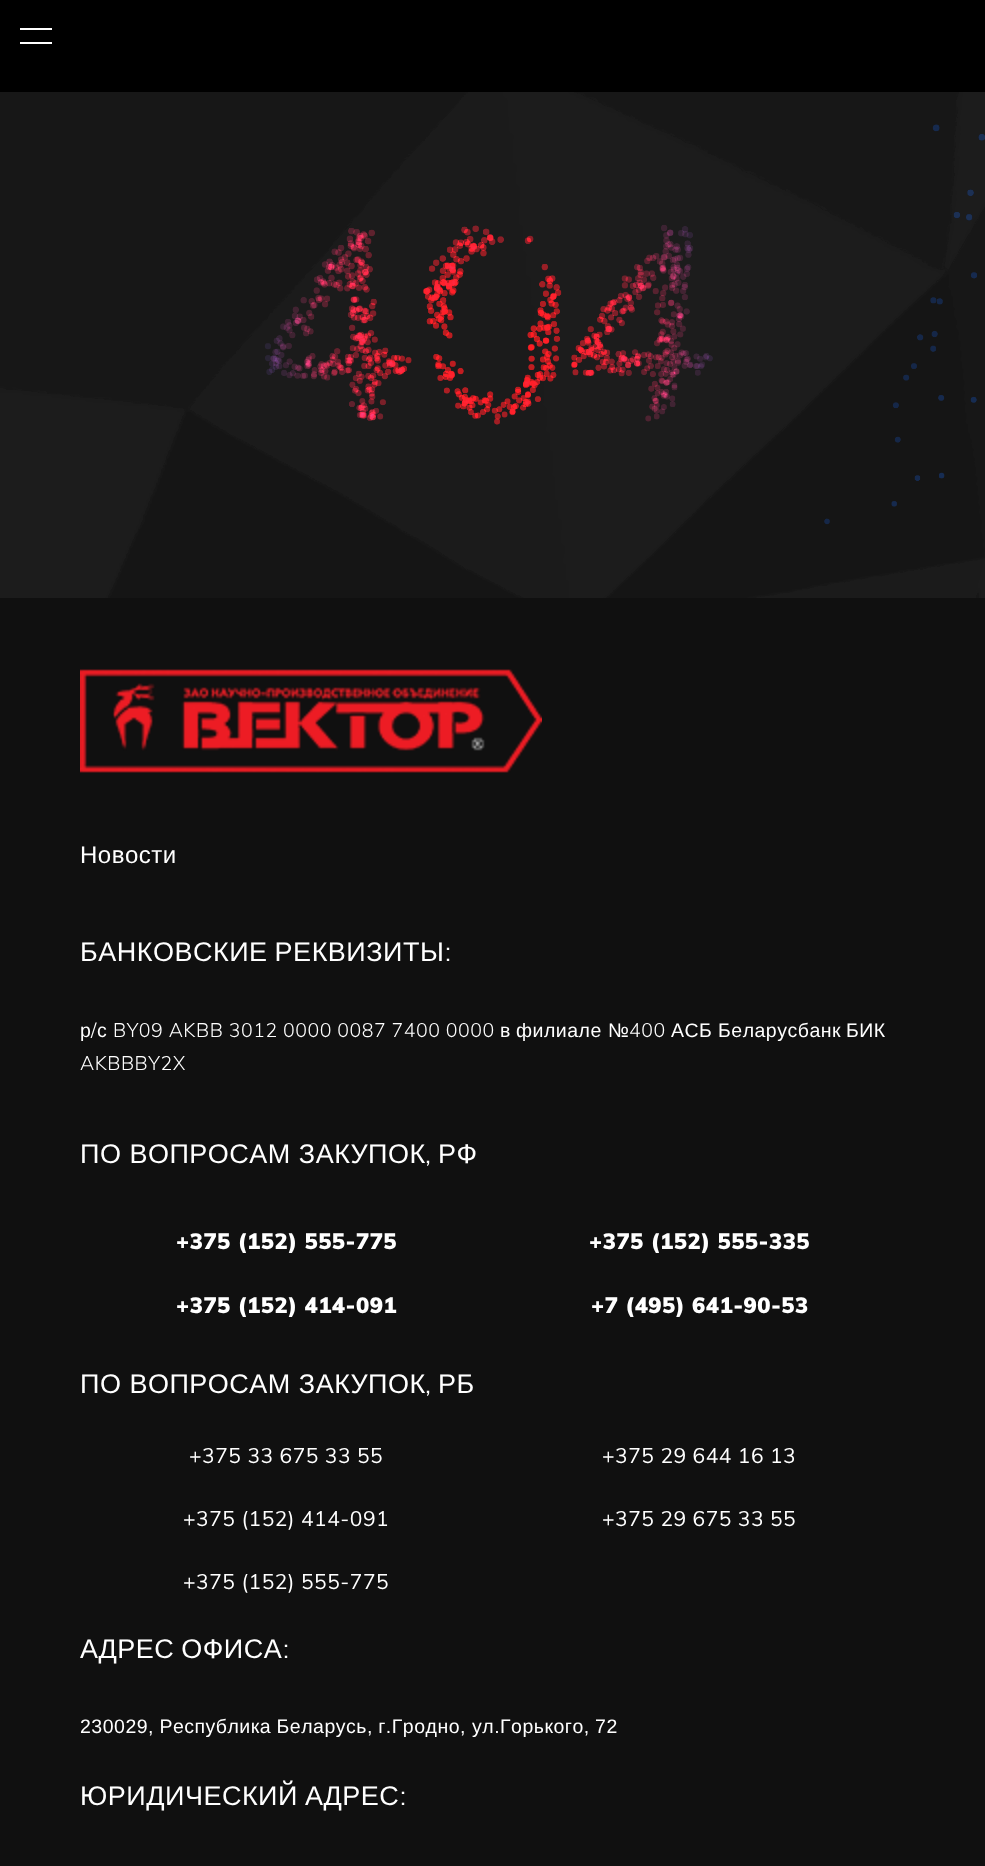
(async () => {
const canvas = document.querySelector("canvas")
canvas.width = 985
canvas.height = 1866
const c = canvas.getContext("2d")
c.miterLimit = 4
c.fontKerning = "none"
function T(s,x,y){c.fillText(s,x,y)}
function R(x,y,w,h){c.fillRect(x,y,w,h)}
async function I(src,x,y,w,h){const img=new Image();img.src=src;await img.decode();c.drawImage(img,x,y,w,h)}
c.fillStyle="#000"
R(0,0,985,1866)
c.fillStyle="#fff"
R(20,28,32,2)
R(20,42,32,2)
await I("1.png",0,92,985,506)
c.fillStyle="#101010"
R(0,598,985,1268)
await I("2.png",80,669,462,104)
c.letterSpacing="0.5px"
c.font="24px Liberation Sans"
c.fillStyle="#fff"
T("Новости",80,863)
c.wordSpacing="-1px"
c.font="27px Liberation Sans"
T("БАНКОВСКИЕ РЕКВИЗИТЫ",80,961)
c.wordSpacing="0px"
c.font="300 27px Muli"
T(":",445,961)
c.font="19.5px Liberation Sans"
T("р",80,1037)
c.font="300 19.5px Muli"
T("/",91,1037)
c.font="19.5px Liberation Sans"
T("с",97,1037)
c.font="300 19.5px Muli"
T("BY09 AKBB 3012 0000 0087 7400 0000",113,1037)
c.font="19.5px Liberation Sans"
T("в",500,1037)
T("филиале",516,1037)
T("№",608,1037)
c.font="300 19.5px Muli"
T("400",629,1037)
c.font="19.5px Liberation Sans"
T("АСБ",671,1037)
T("Беларусбанк",718,1037)
T("БИК",846,1037)
c.font="300 19.5px Muli"
T("AKBBBY2X",80,1070)
c.font="27px Liberation Sans"
T("ПО ВОПРОСАМ ЗАКУПОК",80,1163)
c.font="300 27px Muli"
T(",",425,1163)
c.font="27px Liberation Sans"
T("РФ",438,1163)
c.font="900 22px Muli"
T("+375 (152) 555-775",176,1249)
T("+375 (152) 555-335",589,1249)
T("+375 (152) 414-091",176,1313)
T("+7 (495) 641-90-53",591,1313)
c.font="27px Liberation Sans"
T("ПО ВОПРОСАМ ЗАКУПОК",80,1393)
c.font="300 27px Muli"
T(",",425,1393)
c.font="27px Liberation Sans"
T("РБ",438,1393)
c.font="21px Muli"
T("+375 33 675 33 55",189,1463)
T("+375 29 644 16 13",602,1463)
T("+375 (152) 414-091",183,1526)
T("+375 29 675 33 55",602,1526)
T("+375 (152) 555-775",183,1589)
c.wordSpacing="-1px"
c.font="27px Liberation Sans"
T("АДРЕС ОФИСА",80,1658)
c.wordSpacing="0px"
c.font="300 27px Muli"
T(":",283,1658)
c.wordSpacing="-0.5px"
c.font="19.5px Liberation Sans"
T("230029, Республика Беларусь, г.Гродно,",80,1733)
T("ул.Горького, 72",472,1733)
c.wordSpacing="-1px"
c.font="27px Liberation Sans"
T("ЮРИДИЧЕСКИЙ АДРЕС",80,1805)
c.wordSpacing="0px"
c.font="300 27px Muli"
T(":",400,1805)
})()
